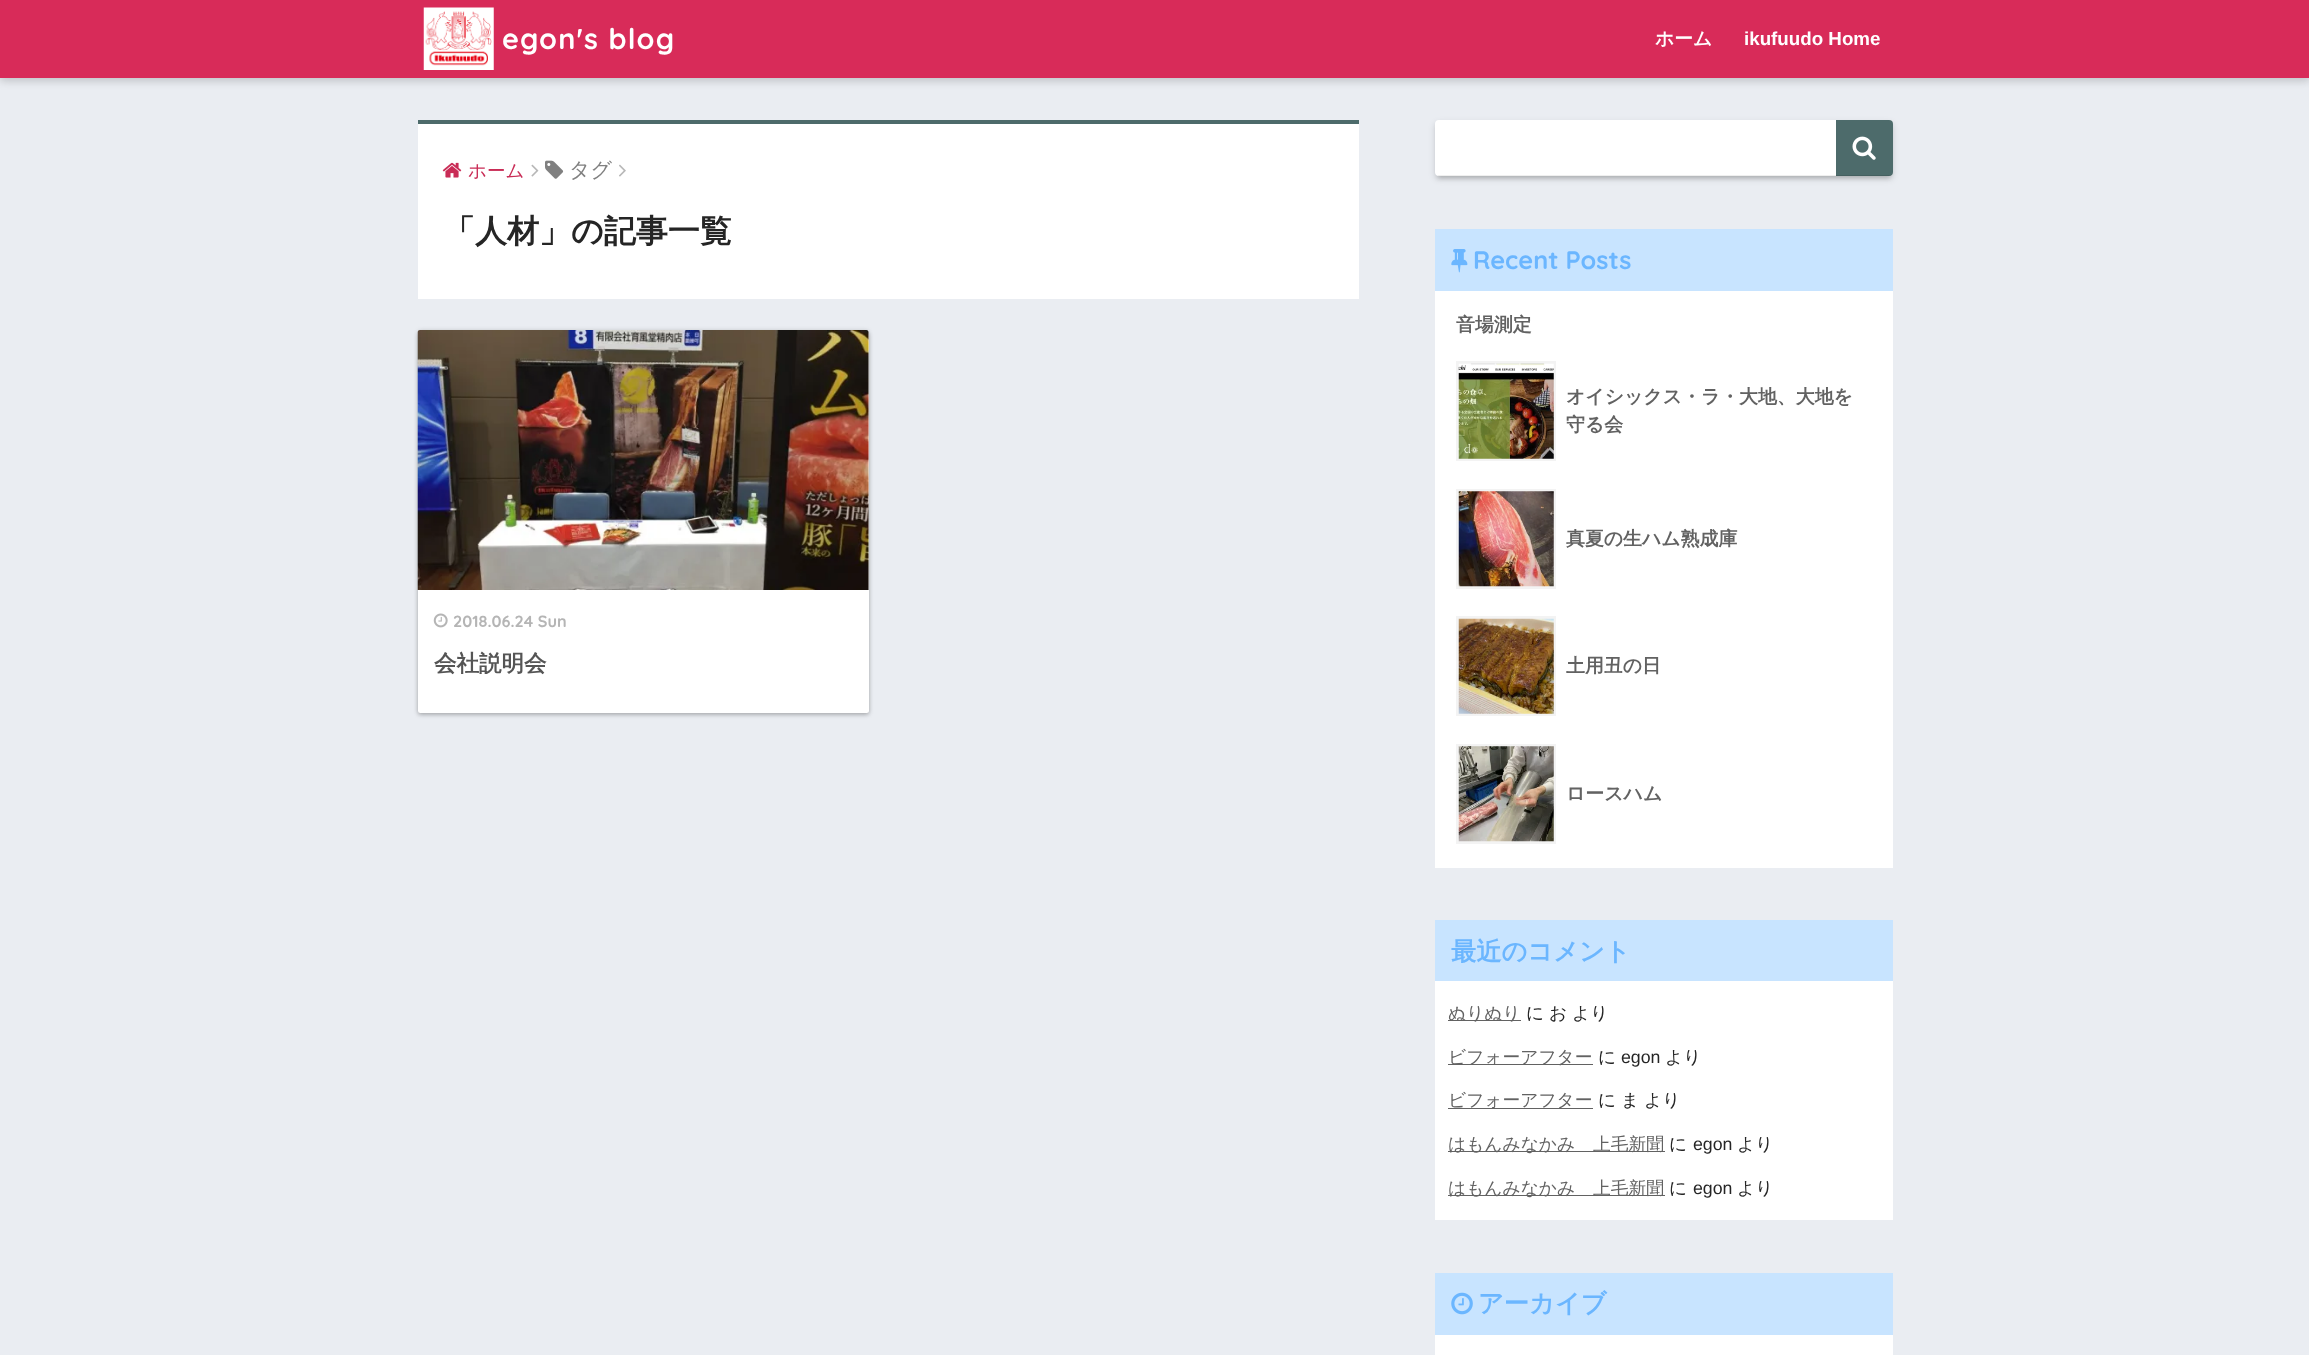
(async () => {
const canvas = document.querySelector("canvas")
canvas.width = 2309
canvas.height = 1355
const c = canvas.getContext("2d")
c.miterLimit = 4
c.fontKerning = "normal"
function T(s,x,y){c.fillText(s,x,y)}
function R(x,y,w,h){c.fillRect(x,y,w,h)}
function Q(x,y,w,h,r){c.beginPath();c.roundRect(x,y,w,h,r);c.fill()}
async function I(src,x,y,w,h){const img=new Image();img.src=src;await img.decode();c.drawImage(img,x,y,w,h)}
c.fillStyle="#eaedf2"
R(0,0,2309,1355)
c.fillStyle="#0000002e"
c.filter="blur(4px)"
c.beginPath()
c.rect(0,4,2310,77)
c.fill()
c.filter="none"
c.fillStyle="#d82b59"
R(0,0,2309,78)
await I("1.png",423,7,71,63)
c.letterSpacing="1.25px"
c.font="bold 28.75px Quicksand"
c.fillStyle="#fff"
T("egon's blog",502,49)
c.letterSpacing="0px"
c.font="bold 18.75px WenQuanYi Zen Hei"
T("ホーム",1655,45)
c.font="bold 18.75px Liberation Sans"
T("ikufuudo Home",1744,45)
R(418,124,941,175)
c.fillStyle="#4d6b6b"
R(418,120,941,4)
await I("2.png",442,162,20,16)
c.font="500 18.5px WenQuanYi Zen Hei"
c.fillStyle="#c92c56"
T("ホーム",468,177)
await I("3.png",531,164,8,13)
await I("4.png",545,160,19,19)
c.font="500 21px WenQuanYi Zen Hei"
c.fillStyle="#808080"
T("タグ",569,177)
await I("5.png",619,164,7,13)
c.font="bold 32px WenQuanYi Zen Hei"
c.fillStyle="#252525"
T("「人材」の記事一覧",443,242)
c.fillStyle="#00000038"
c.filter="blur(2px)"
c.beginPath()
c.roundRect(418,333,451,382,2.5)
c.fill()
c.filter="none"
c.fillStyle="#0000001f"
c.filter="blur(2px)"
c.beginPath()
c.roundRect(418,330,451,383,2.5)
c.fill()
c.filter="none"
c.fillStyle="#fff"
Q(418,330,451,383,2.5)
await I("6.png",417,330,452,260)
await I("7.png",433,613,15,15)
c.font="bold 16.25px Quicksand"
c.fillStyle="#b5b5b5"
T("2018.06.24 Sun",453,627)
c.font="bold 22.5px WenQuanYi Zen Hei"
c.fillStyle="#555"
T("会社説明会",434,671)
c.fillStyle="#00000026"
c.filter="blur(2px)"
c.beginPath()
c.roundRect(1438,126,452,52,1)
c.fill()
c.filter="none"
c.filter="blur(3px)"
c.beginPath()
c.roundRect(1435,123,458,56,4)
c.fill()
c.filter="none"
c.fillStyle="#fff"
Q(1435,120,458,56,4)
c.fillStyle="#efefef"
R(1438,175,453,1)
c.fillStyle="#4d6b6b"
c.beginPath()
c.roundRect(1836,120,57,56,[0,4,4,0])
c.fill()
c.fillStyle="#0000001a"
R(1836,175,55,1)
await I("8.png",1852,136,24,24)
c.fillStyle="#fff"
R(1435,291,458,577)
c.fillStyle="#c8e4ff"
R(1435,229,458,62)
await I("9.png",1451,249,17,24)
c.font="bold 25.25px Quicksand"
c.fillStyle="#6bb6ff"
T("Recent Posts",1473,269)
c.font="bold 18.9px WenQuanYi Zen Hei"
c.fillStyle="#626262"
T("音場測定",1456,331)
c.strokeStyle="#f3f3f3"
c.lineWidth=3
c.strokeRect(1457.5,362.5,97,97)
await I("10.png",1458,363,96,96)
T("オイシックス・ラ・大地、大地を",1566,403)
T("守る会",1566,431)
c.strokeRect(1457.5,490.5,97,97)
await I("11.png",1458,491,96,96)
T("真夏の生ハム熟成庫",1566,545)
c.strokeRect(1457.5,617.5,97,97)
await I("12.png",1458,618,96,96)
T("土用丑の日",1566,672)
c.strokeRect(1457.5,745.5,97,97)
await I("13.png",1458,746,96,96)
T("ロースハム",1566,800)
c.fillStyle="#fff"
R(1435,981,458,239)
c.fillStyle="#c8e4ff"
R(1435,920,458,61)
c.font="bold 25.25px WenQuanYi Zen Hei"
c.fillStyle="#6bb6ff"
T("最近のコメント",1451,960)
c.fillStyle="#626262"
R(1448,1020,73,1)
c.font="500 17.75px WenQuanYi Zen Hei"
T("ぬりぬり",1448,1019)
c.fillStyle="#252525"
T("に",1526,1019)
T("お",1549,1019)
T("より",1572,1019)
c.fillStyle="#626262"
R(1448,1064,145,1)
T("ビフォーアフター",1448,1063)
c.fillStyle="#252525"
T("に",1598,1063)
c.font="17.75px Liberation Sans"
T("egon",1621,1063)
c.font="500 17.75px WenQuanYi Zen Hei"
T("より",1665,1063)
c.fillStyle="#626262"
R(1448,1108,145,1)
T("ビフォーアフター",1448,1106)
c.fillStyle="#252525"
T("に",1598,1106)
T("ま",1621,1106)
T("より",1644,1106)
c.fillStyle="#626262"
R(1448,1151,217,1)
T("はもんみなかみ　上毛新聞",1448,1150)
c.fillStyle="#252525"
T("に",1669,1150)
c.font="17.75px Liberation Sans"
T("egon",1693,1150)
c.font="500 17.75px WenQuanYi Zen Hei"
T("より",1737,1150)
c.fillStyle="#626262"
R(1448,1195,217,1)
T("はもんみなかみ　上毛新聞",1448,1194)
c.fillStyle="#252525"
T("に",1669,1194)
c.font="17.75px Liberation Sans"
T("egon",1693,1194)
c.font="500 17.75px WenQuanYi Zen Hei"
T("より",1737,1194)
c.fillStyle="#fff"
R(1435,1335,458,20)
c.fillStyle="#c8e4ff"
R(1435,1273,458,62)
await I("14.png",1451,1292,22,23)
c.font="bold 25.25px WenQuanYi Zen Hei"
c.fillStyle="#6bb6ff"
T("アーカイブ",1478,1312)
})()
